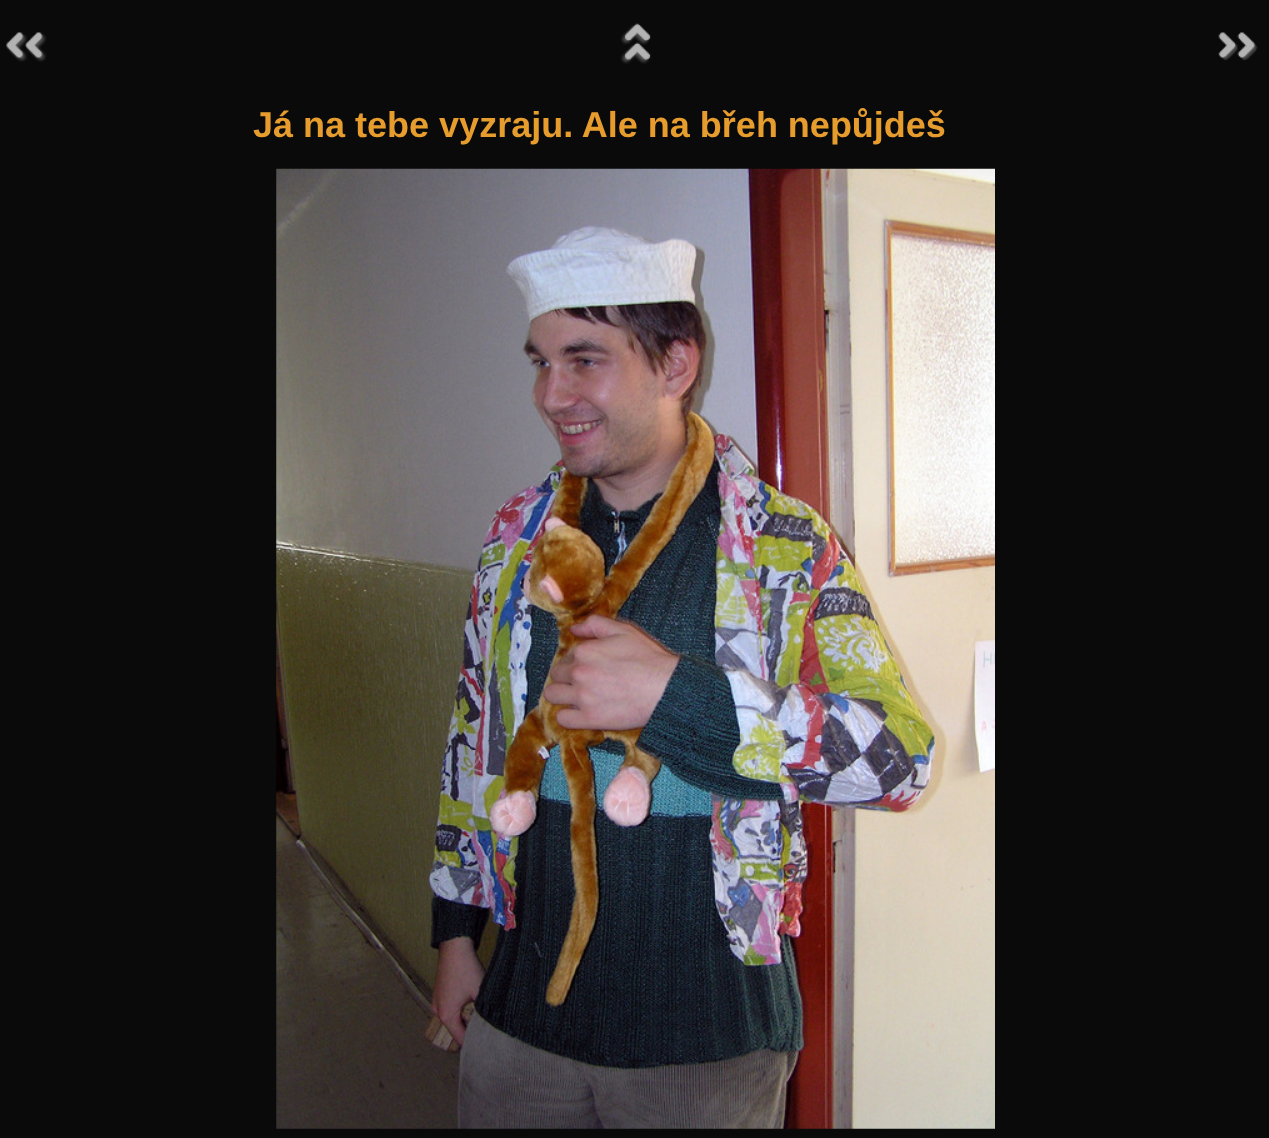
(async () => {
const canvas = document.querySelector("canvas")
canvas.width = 1269
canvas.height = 1138
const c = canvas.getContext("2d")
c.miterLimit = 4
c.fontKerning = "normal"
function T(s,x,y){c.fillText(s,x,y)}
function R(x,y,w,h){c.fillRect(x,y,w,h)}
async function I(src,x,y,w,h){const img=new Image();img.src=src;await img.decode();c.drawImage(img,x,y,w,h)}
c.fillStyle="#0a0a0a"
R(0,0,1269,1138)
await I("1.png",6,32,41,30)
await I("2.png",620,23,31,41)
await I("3.png",1218,32,40,29)
c.font="bold 36px Liberation Sans"
c.fillStyle="#e69d2e"
T("Já na tebe vyzraju. Ale na břeh nepůjdeš",253,137)
await I("4.png",276,168,719,961)
})()
